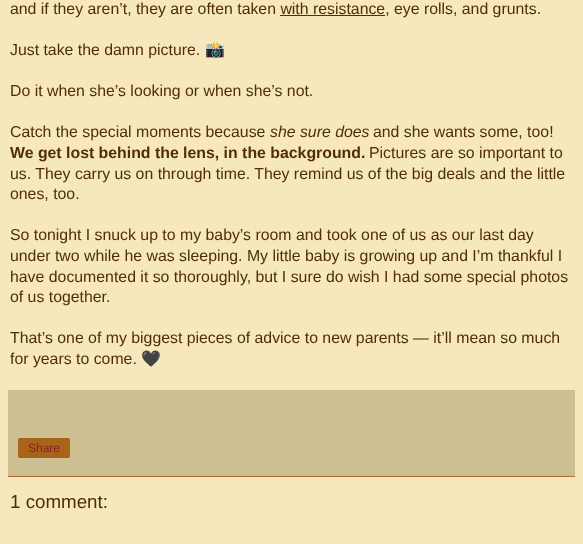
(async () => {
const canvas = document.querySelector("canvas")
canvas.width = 583
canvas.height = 544
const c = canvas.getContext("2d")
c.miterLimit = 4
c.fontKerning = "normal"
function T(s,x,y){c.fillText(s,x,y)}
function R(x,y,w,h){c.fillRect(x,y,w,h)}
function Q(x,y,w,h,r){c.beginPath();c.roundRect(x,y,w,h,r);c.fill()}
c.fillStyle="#f6e7bc"
R(0,0,583,544)
c.font="15.85px Liberation Sans"
c.fillStyle="#502d08"
T("and if they aren’t, they are often taken with resistance, eye rolls, and grunts.",10,14)
R(280,15,105,1)
T("Just take the damn picture.",10,55)
c.font="15.85px Noto Color Emoji"
T("📸",205,55)
c.font="15.85px Liberation Sans"
T("Do it when she’s looking or when she’s not.",10,96)
T("Catch the special moments because",10,137)
c.font="italic 15.85px Liberation Sans"
T("she sure does",270,137)
c.font="15.85px Liberation Sans"
T("and she wants some, too!",373,137)
c.font="bold 15.85px Liberation Sans"
T("We get lost behind the lens, in the background.",10,158)
c.font="15.85px Liberation Sans"
T("Pictures are so important to",369,158)
T("us. They carry us on through time. They remind us of the big deals and the little",10,179)
T("ones, too.",10,199)
T("So tonight I snuck up to my baby’s room and took one of us as our last day",10,240)
T("under two while he was sleeping. My little baby is growing up and I’m thankful I",10,261)
T("have documented it so thoroughly, but I sure do wish I had some special photos",10,282)
T("of us together.",10,302)
T("That’s one of my biggest pieces of advice to new parents — it’ll mean so much",10,343)
T("for years to come.",10,364)
c.font="15.85px Noto Color Emoji"
T("🖤",141,364)
c.fillStyle="#cebf93"
R(8,390,567,86)
c.fillStyle="#ae6d2e"
R(8,476,567,1)
c.fillStyle="#a7641a"
Q(18,438,52,20,2)
c.font="12px Liberation Sans"
c.fillStyle="#822"
T("Share",28,452)
c.font="18.75px Liberation Sans"
c.fillStyle="#502d08"
T("1 comment:",10,508)
})()
